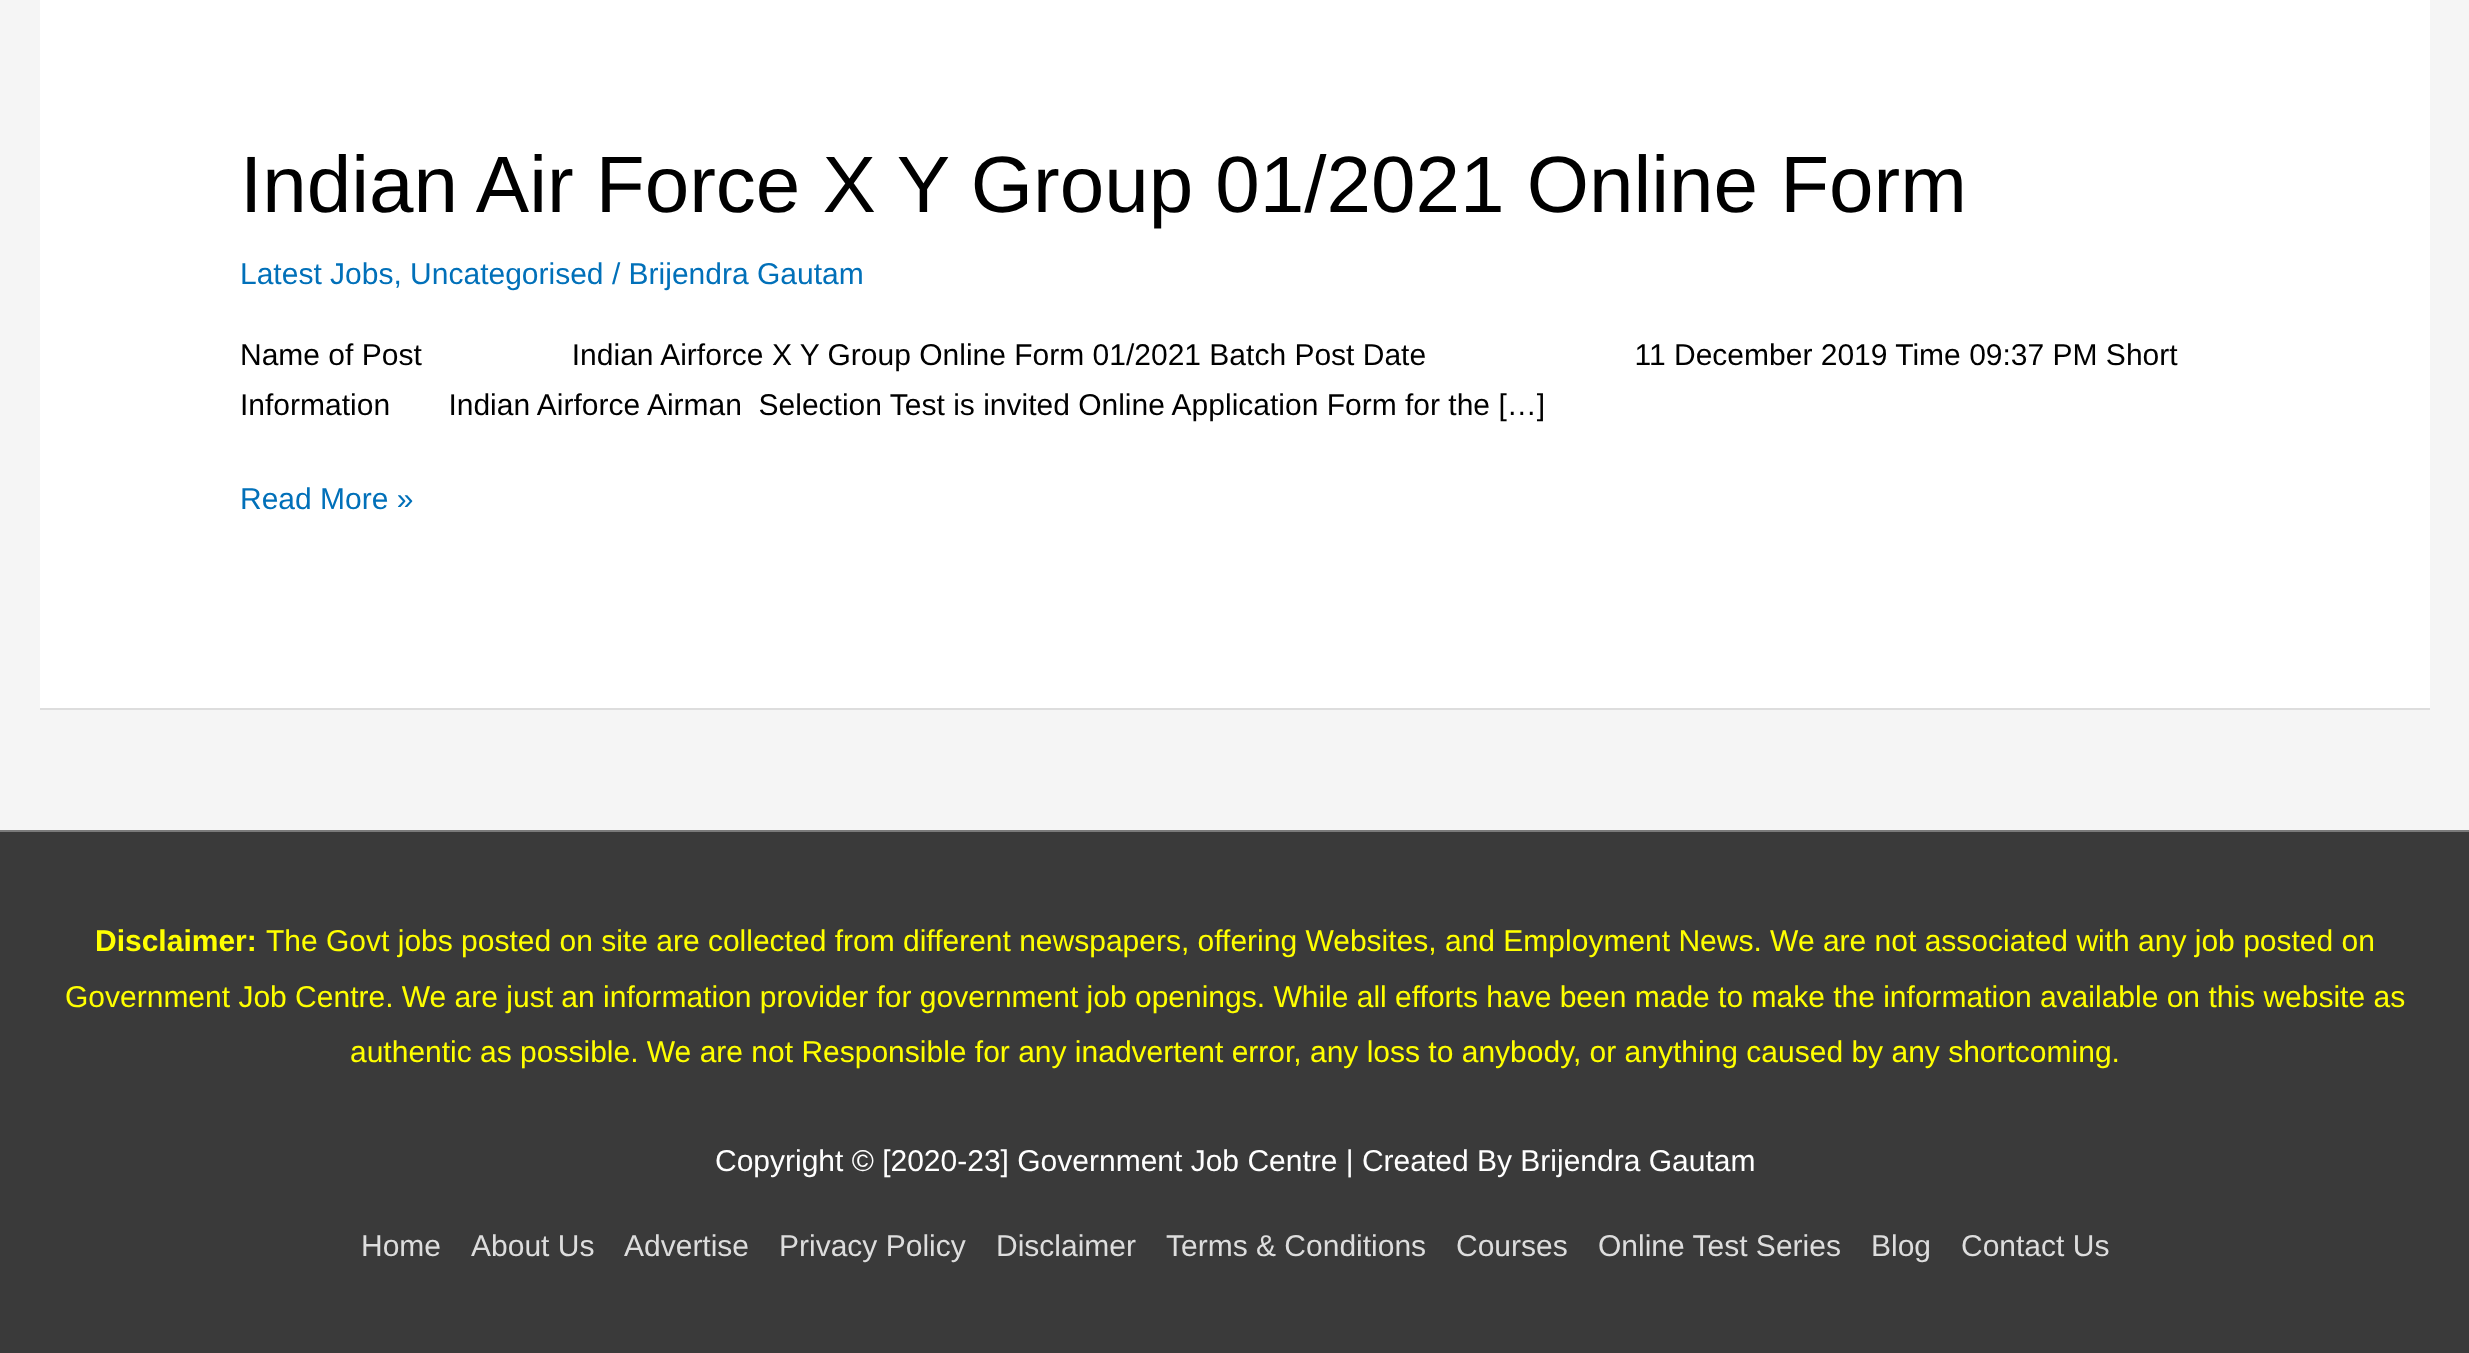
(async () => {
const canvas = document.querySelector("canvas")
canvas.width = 2469
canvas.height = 1353
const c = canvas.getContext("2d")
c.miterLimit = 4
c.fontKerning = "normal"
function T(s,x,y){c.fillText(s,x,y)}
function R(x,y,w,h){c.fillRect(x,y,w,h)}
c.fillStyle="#f5f5f5"
R(0,0,2469,1353)
c.fillStyle="#fff"
R(40,0,2390,708)
c.fillStyle="#ddd"
R(40,708,2390,2)
c.font="80px Liberation Sans"
c.fillStyle="#000"
T("Indian Air Force X Y Group 01/2021 Online Form",240,212)
c.font="30px Liberation Sans"
c.fillStyle="#0170b9"
T("Latest Jobs, Uncategorised / Brijendra Gautam",240,284)
c.fillStyle="#000"
T("Name of Post                  Indian Airforce X Y Group Online Form 01/2021 Batch Post Date                         11 December 2019 Time 09:37 PM Short",240,365)
T("Information       Indian Airforce Airman  Selection Test is invited Online Application Form for the […]",240,415)
c.fillStyle="#0170b9"
T("Read More »",240,509)
c.fillStyle="#7a7a7a"
R(0,830,2469,2)
c.fillStyle="#3a3a3a"
R(0,832,2469,521)
c.font="bold 30px Liberation Sans"
c.fillStyle="#ff0"
T("Disclaimer:",95,951)
c.font="30px Liberation Sans"
T("The Govt jobs posted on site are collected from different newspapers, offering Websites, and Employment News. We are not associated with any job posted on",266,951)
T("Government Job Centre. We are just an information provider for government job openings. While all efforts have been made to make the information available on this website as",65,1007)
T("authentic as possible. We are not Responsible for any inadvertent error, any loss to anybody, or anything caused by any shortcoming.",350,1062)
c.fillStyle="#fff"
T("Copyright © [2020-23] Government Job Centre | Created By Brijendra Gautam",715,1171)
c.fillStyle="#ddd"
T("Home",361,1256)
T("About Us",471,1256)
T("Advertise",624,1256)
T("Privacy Policy",779,1256)
T("Disclaimer",996,1256)
T("Terms & Conditions",1166,1256)
T("Courses",1456,1256)
T("Online Test Series",1598,1256)
T("Blog",1871,1256)
T("Contact Us",1961,1256)
})()
